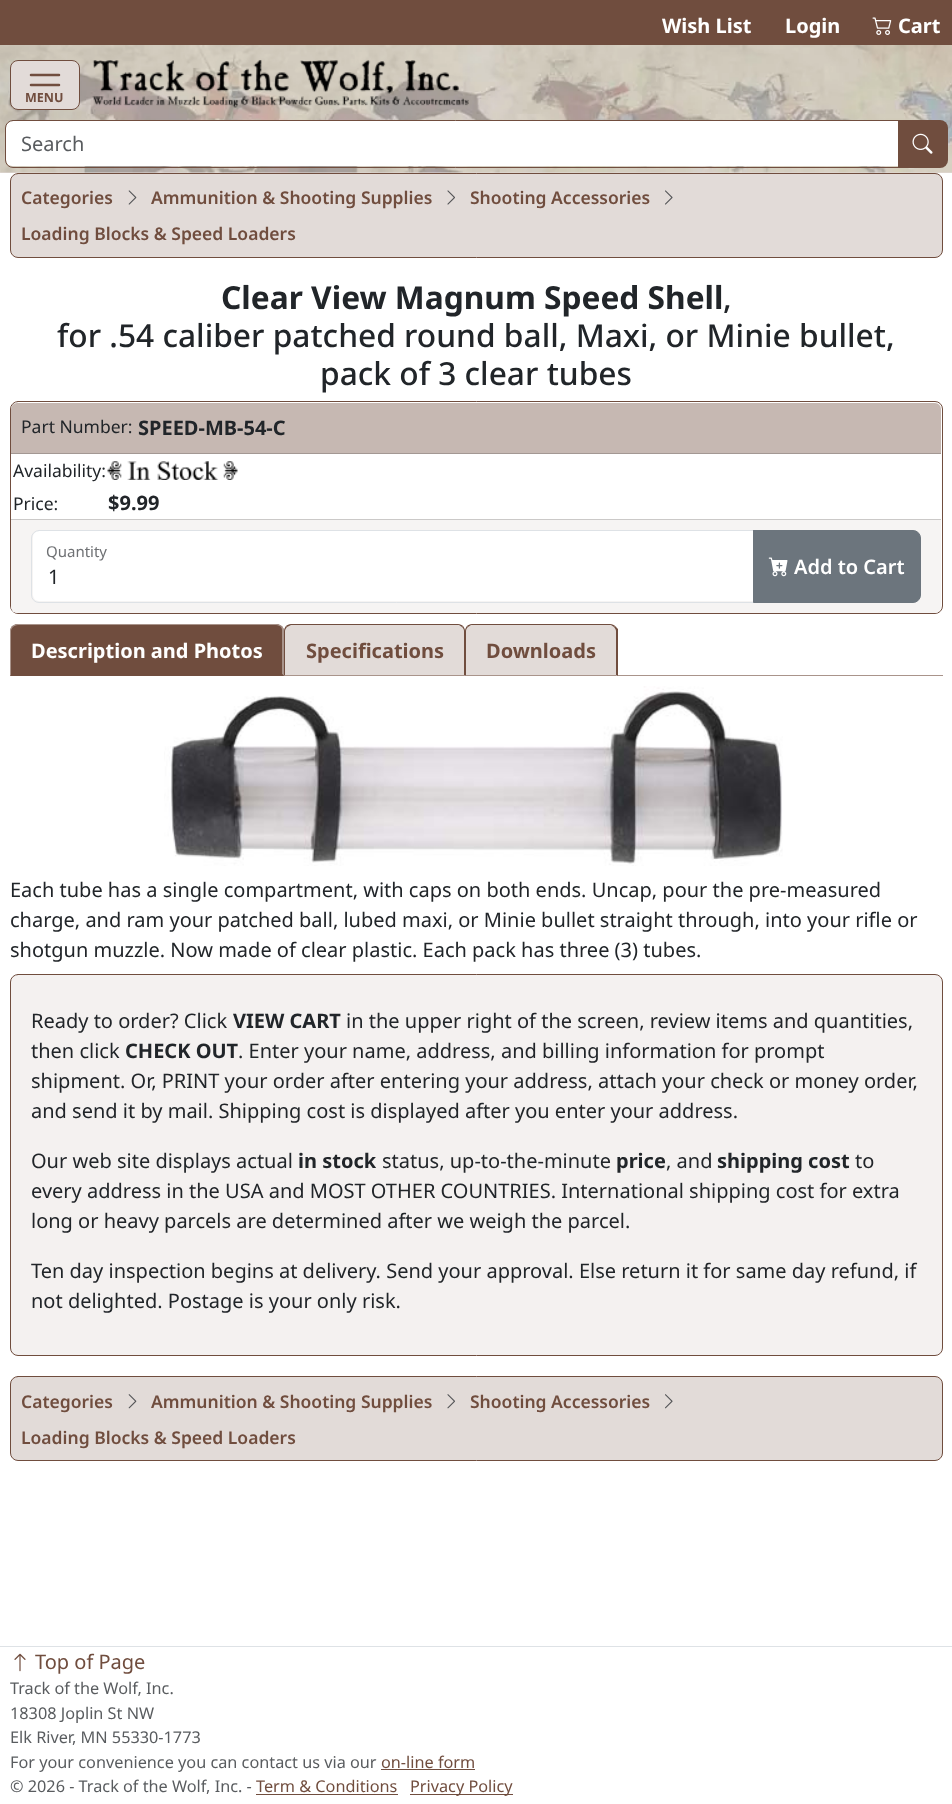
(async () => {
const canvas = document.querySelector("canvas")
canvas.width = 952
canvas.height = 1804
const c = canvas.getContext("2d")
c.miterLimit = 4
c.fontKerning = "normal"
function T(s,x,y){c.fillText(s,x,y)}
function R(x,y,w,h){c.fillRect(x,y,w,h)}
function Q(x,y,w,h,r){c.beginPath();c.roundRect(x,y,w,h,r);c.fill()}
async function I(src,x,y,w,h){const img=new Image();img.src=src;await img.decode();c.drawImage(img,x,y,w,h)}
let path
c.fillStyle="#fff"
R(0,0,952,1804)
c.fillStyle="#704d3e"
R(0,0,952,45)
c.font="bold 20px Noto Sans"
c.fillStyle="#fff"
T("Wish List",662,33)
T("Login",785,33)
await I("1.png",872,17,20,18)
T("Cart",898,33)
c.fillStyle="#e2dbd8"
R(0,172,952,1)
await I("2.png",0,45,952,128)
c.beginPath()
c.roundRect(10.5,60.5,69,49,7.5)
c.fill()
c.strokeStyle="#704d3e"
c.stroke()
path = new Path2D("M31 75h28m-28 10h28m-28 10h28")
c.lineWidth=2.5
c.lineCap="round"
c.stroke(path)
Q(25,90,39,13,6.5)
c.font="bold 12.5px Noto Sans"
c.fillStyle="#704d3e"
T("MENU",25,102)
await I("3.png",92,60,377,48)
c.fillStyle="#fff"
c.beginPath()
c.roundRect(6,121,892,45,[6,0,0,6])
c.fill()
c.beginPath()
c.roundRect(5.5,120.5,893,47,[7.5,0,0,7.5])
c.lineWidth=1
c.stroke()
c.font="20px Noto Sans"
c.fillStyle="#595c5f"
T("Search",21,151)
c.fillStyle="#704d3e"
c.beginPath()
c.roundRect(898,120,50,48,[0,8,8,0])
c.fill()
await I("4.png",912,133,21,21)
c.fillStyle="#e2dbd8"
c.beginPath()
c.roundRect(10.5,173.5,932,84,7.5)
c.fill()
c.stroke()
c.font="600 17.5px Noto Sans"
c.fillStyle="#704d3e"
T("Categories",21,204)
await I("5.png",128,190,9,15)
T("Ammunition & Shooting Supplies",151,204)
await I("6.png",447,190,8,15)
T("Shooting Accessories",470,204)
await I("7.png",665,190,8,15)
T("Loading Blocks & Speed Loaders",21,240)
c.font="bold 31.7px Noto Sans"
c.fillStyle="#212529"
T("Clear View Magnum Speed Shell",221,309)
c.font="500 31.7px Noto Sans"
T(",",723,309)
T("for .54 caliber patched round ball, Maxi, or Minie bullet,",57,347)
T("pack of 3 clear tubes",320,385)
c.beginPath()
c.roundRect(10.5,401.5,932,212,7.5)
c.stroke()
c.fillStyle="#c6b8b2"
c.beginPath()
c.roundRect(11,403,930,51,[6,6,0,0])
c.fill()
c.fillStyle="#a39893"
R(11,453,930,1)
c.font="17.5px Noto Sans"
c.fillStyle="#212529"
T("Part Number:",21,433)
c.font="bold 20px Noto Sans"
T("SPEED-MB-54-C",138,435)
c.font="17.5px Noto Sans"
T("Availability:",13,477)
await I("8.png",107,461,131,19)
T("Price:",13,510)
c.font="bold 20px Noto Sans"
T("$9.99",108,510)
c.fillStyle="#f6f4f3"
c.beginPath()
c.roundRect(11,519,930,94,[0,0,6,6])
c.fill()
c.fillStyle="#cbc9c8"
R(11,519,930,1)
c.fillStyle="#fff"
c.beginPath()
c.roundRect(33,531,720,70,[6,0,0,6])
c.fill()
c.beginPath()
c.roundRect(31.5,530.5,722,72,[7.5,0,0,7.5])
c.strokeStyle="#dee2e6"
c.stroke()
c.font="15px Noto Sans"
c.fillStyle="#6f7174"
T("Quantity",46,557)
c.fillStyle="#6c757d"
c.beginPath()
c.roundRect(753.5,530.5,167,72,[0,7.5,7.5,0])
c.fill()
c.strokeStyle="#6c757d"
c.stroke()
await I("9.png",768,557,20,20)
c.font="600 20px Noto Sans"
c.fillStyle="#fff"
T("Add to Cart",794,574)
c.font="20px Noto Sans"
c.fillStyle="#212529"
T("1",48,584)
c.fillStyle="#a9948b"
R(618,675,325,1)
c.fillStyle="#704d3e"
c.beginPath()
c.roundRect(10,624,274,52,[8,8,0,0])
c.fill()
c.fillStyle="#a9948b"
path = new Path2D("M18 624c-2 0-4 1-6 2l1 1c1-1 3-2 5-2h258c2 0 4 1 5 2l1-1c-2-1-4-2-6-2z")
c.fill(path)
path = new Path2D("M282 626l2 3v47l-2-2v-43c0-1 0-3-1-4z")
c.fill(path)
c.fillStyle="#704d3e"
path = new Path2D("M284 676h-274l1-1h271v-1z")
c.fill(path)
c.fillStyle="#a9948b"
path = new Path2D("M10 631v45l1-1v-44c0-2 1-3 2-4l-1-1c-1 1-2 3-2 5z")
c.fill(path)
c.font="bold 20px Noto Sans"
c.fillStyle="#fff"
T("Description and Photos",31,658)
c.fillStyle="#e2dbd8"
c.beginPath()
c.roundRect(284,624,181,52,[8,8,0,0])
c.fill()
c.fillStyle="#704d3e"
path = new Path2D("M291 624c-2 0-4 1-5 2l1 1l4-2h168l3 2l1-1c-1-1-3-2-5-2z")
c.fill(path)
path = new Path2D("M463 626c1 1 2 3 2 5v45l-1-1v-44c0-2-1-3-2-4z")
c.fill(path)
c.fillStyle="#a9948b"
path = new Path2D("M465 676h-181l1-1h179z")
c.fill(path)
c.fillStyle="#704d3e"
path = new Path2D("M286 626c-1 1-2 3-2 5v45l1-1v-44c0-1 1-3 2-4z")
c.fill(path)
T("Specifications",306,658)
c.fillStyle="#e2dbd8"
c.beginPath()
c.roundRect(465,624,153,52,[8,8,0,0])
c.fill()
c.fillStyle="#704d3e"
path = new Path2D("M472 624c-2 0-4 1-5 2l1 1l3-2h140l3 2l1-1c-1-1-3-2-5-2z")
c.fill(path)
path = new Path2D("M615 626l3 3v47l-2-1v-44c0-1-1-3-2-4z")
c.fill(path)
c.fillStyle="#a9948b"
path = new Path2D("M617 676h-152l1-1h150z")
c.fill(path)
c.fillStyle="#704d3e"
path = new Path2D("M465 631v45l1-1v-44c0-2 1-3 2-4l-1-1c-1 1-2 3-2 5z")
c.fill(path)
T("Downloads",486,658)
await I("10.png",164,686,619,180)
c.font="20px Noto Sans"
c.fillStyle="#212529"
T("Each tube has a single compartment, with caps on both ends. Uncap, pour the pre-measured",10,897)
T("charge, and ram your patched ball, lubed maxi, or Minie bullet straight through, into your rifle or",10,927)
T("shotgun muzzle. Now made of clear plastic. Each pack has three (3) tubes.",10,957)
c.fillStyle="#f4f1f0"
c.beginPath()
c.roundRect(10.5,974.5,932,381,7.5)
c.fill()
c.strokeStyle="#704d3e"
c.stroke()
c.fillStyle="#212529"
T("Ready to order? Click",31,1028)
c.font="bold 20px Noto Sans"
T("VIEW CART",233,1028)
c.font="20px Noto Sans"
T("in the upper right of the screen, review items and quantities,",346,1028)
T("then click",31,1058)
c.font="bold 20px Noto Sans"
T("CHECK OUT",125,1058)
c.font="20px Noto Sans"
T(". Enter your name, address, and billing information for prompt",238,1058)
T("shipment. Or, PRINT your order after entering your address, attach your check or money order,",31,1088)
T("and send it by mail. Shipping cost is displayed after you enter your address.",31,1118)
T("Our web site displays actual",31,1168)
c.font="bold 20px Noto Sans"
T("in stock",298,1168)
c.font="20px Noto Sans"
T("status, up-to-the-minute",382,1168)
c.font="bold 20px Noto Sans"
T("price",616,1168)
c.font="20px Noto Sans"
T(", and",666,1168)
c.font="bold 20px Noto Sans"
T("shipping cost",717,1168)
c.font="20px Noto Sans"
T("to",855,1168)
T("every address in the USA and MOST OTHER COUNTRIES. International shipping cost for extra",31,1198)
T("long or heavy parcels are determined after we weigh the parcel.",31,1228)
T("Ten day inspection begins at delivery. Send your approval. Else return it for same day refund, if",31,1278)
T("not delighted. Postage is your only risk.",31,1308)
c.fillStyle="#e2dbd8"
c.beginPath()
c.roundRect(10.5,1376.5,932,84,7.5)
c.fill()
c.stroke()
c.font="600 17.5px Noto Sans"
c.fillStyle="#704d3e"
T("Categories",21,1408)
await I("11.png",128,1394,9,15)
T("Ammunition & Shooting Supplies",151,1408)
await I("12.png",447,1394,8,15)
T("Shooting Accessories",470,1408)
await I("13.png",665,1394,8,15)
T("Loading Blocks & Speed Loaders",21,1444)
c.fillStyle="#dee2e6"
R(0,1646,952,1)
await I("14.png",14,1653,12,19)
c.font="20px Noto Sans"
c.fillStyle="#704d3e"
T("Top of Page",35,1669)
c.font="16.25px Noto Sans"
c.fillStyle="#595c5f"
T("Track of the Wolf, Inc.",10,1694)
T("18308 Joplin St NW",10,1719)
T("Elk River, MN 55330-1773",10,1743)
T("For your convenience you can contact us via our",10,1768)
c.fillStyle="#704d3e"
T("on-line form",381,1768)
R(381,1769,94,1)
c.fillStyle="#595c5f"
T("© 2026 - Track of the Wolf, Inc. -",10,1792)
c.fillStyle="#704d3e"
T("Term & Conditions",256,1792)
R(256,1794,142,1)
R(410,1794,103,1)
T("Privacy Policy",410,1792)
})()
